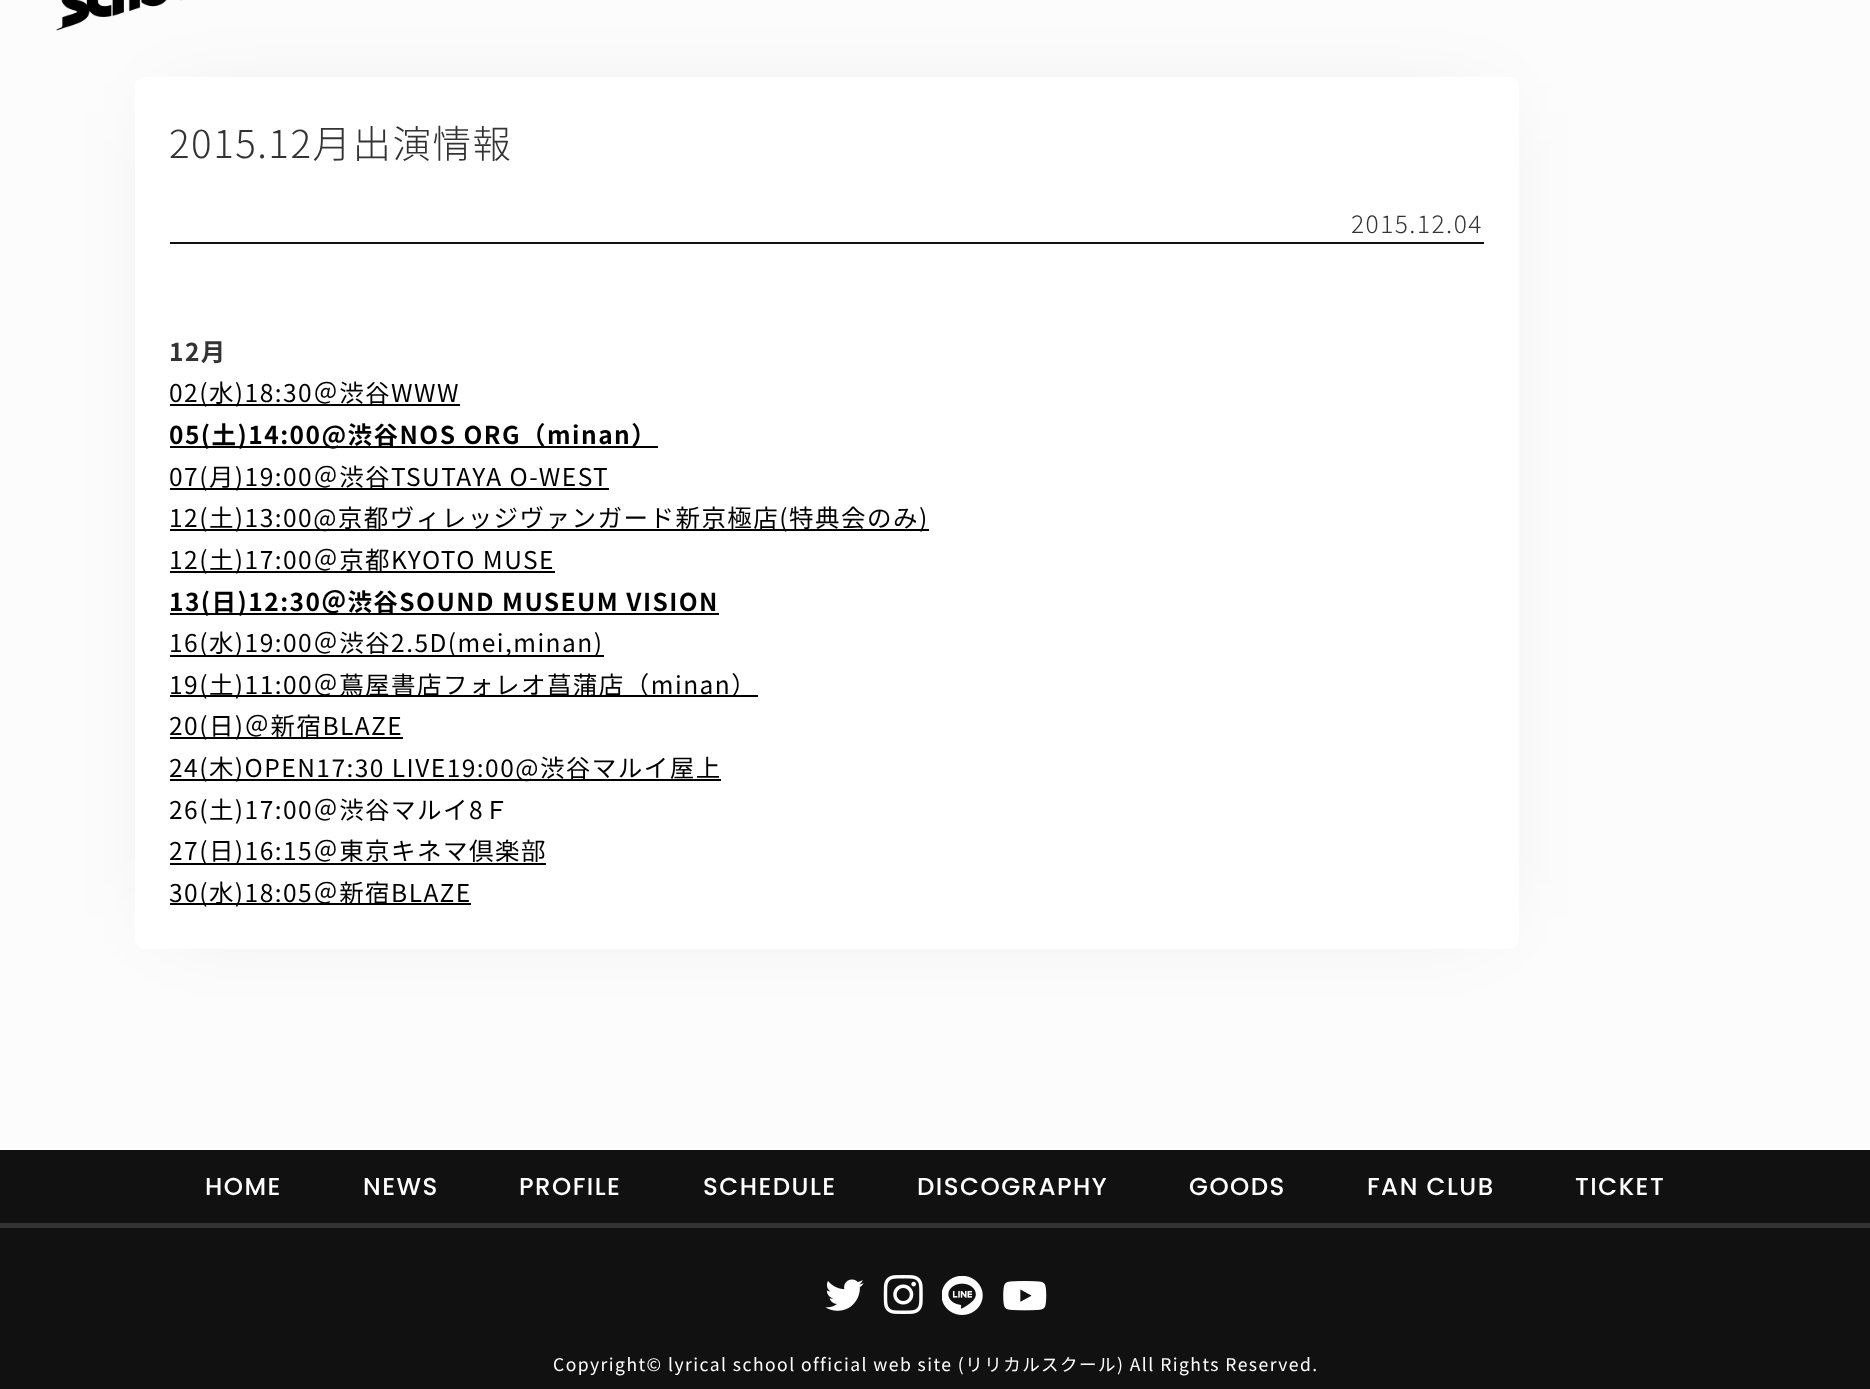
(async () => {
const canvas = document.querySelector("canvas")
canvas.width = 1870
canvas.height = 1389
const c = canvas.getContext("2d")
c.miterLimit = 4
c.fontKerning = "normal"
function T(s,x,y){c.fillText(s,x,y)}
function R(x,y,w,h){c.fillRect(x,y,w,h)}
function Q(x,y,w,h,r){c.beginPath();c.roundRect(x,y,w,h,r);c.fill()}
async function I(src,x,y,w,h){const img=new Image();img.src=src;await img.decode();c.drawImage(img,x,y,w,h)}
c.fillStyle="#fbfcfb"
R(0,0,1870,1389)
await I("1.png",56,0,127,31)
c.fillStyle="#0000001a"
c.filter="blur(44px)"
c.beginPath()
c.rect(170,112,1314,802)
c.fill()
c.filter="none"
c.fillStyle="#fff"
Q(135,77,1384,872,9)
c.letterSpacing="1.47px"
c.font="300 38.5px Noto Sans JP"
c.fillStyle="#333"
T("2015.12月出演情報",169,158)
c.fillStyle="#111"
R(170,242,1314,2)
c.font="300 24.5px Noto Sans JP"
c.fillStyle="#333"
T("2015.12.04",1351,233)
c.font="bold 24.5px Noto Sans JP"
T("12月",169,361)
c.fillStyle="#000"
R(170,404,290,2)
c.font="24.5px Noto Sans JP"
T("02(水)18:30＠渋谷WWW",169,402)
R(170,446,488,2)
c.font="bold 24.5px Noto Sans JP"
T("05(土)14:00@渋谷NOS ORG（minan）",169,444)
R(170,488,439,2)
c.font="24.5px Noto Sans JP"
T("07(月)19:00＠渋谷TSUTAYA O-WEST",169,486)
R(170,529,759,2)
T("12(土)13:00@京都ヴィレッジヴァンガード新京極店(特典会のみ)",169,527)
R(170,571,385,2)
T("12(土)17:00＠京都KYOTO MUSE",169,569)
R(170,613,549,2)
c.font="bold 24.5px Noto Sans JP"
T("13(日)12:30＠渋谷SOUND MUSEUM VISION",169,611)
R(170,655,434,2)
c.font="24.5px Noto Sans JP"
T("16(水)19:00＠渋谷2.5D(mei,minan)",169,652)
R(170,695,588,2)
T("19(土)11:00＠蔦屋書店フォレオ菖蒲店（minan）",169,694)
R(170,737,233,2)
T("20(日)＠新宿BLAZE",169,735)
R(170,779,551,2)
T("24(木)OPEN17:30 LIVE19:00@渋谷マルイ屋上",169,777)
T("26(土)17:00＠渋谷マルイ8Ｆ",169,819)
R(170,863,376,2)
T("27(日)16:15＠東京キネマ倶楽部",169,860)
R(170,903,301,2)
T("30(水)18:05＠新宿BLAZE",169,902)
c.fillStyle="#111"
R(0,1150,1870,239)
c.fillStyle="#333"
R(0,1223,1870,5)
c.font="500 24.5px Poppins"
c.fillStyle="#fff"
T("HOME",205,1195)
T("NEWS",363,1195)
T("PROFILE",519,1195)
T("SCHEDULE",703,1195)
T("DISCOGRAPHY",917,1195)
T("GOODS",1189,1195)
T("FAN CLUB",1367,1195)
T("TICKET",1575,1195)
await I("2.png",825,1279,39,32)
await I("3.png",883,1275,40,39)
await I("4.png",942,1276,41,39)
await I("5.png",1003,1281,44,30)
c.font="17.5px Noto Sans JP"
T("Copyright© lyrical school official web site (リリカルスクール) All Rights Reserved.",553,1371)
})()
